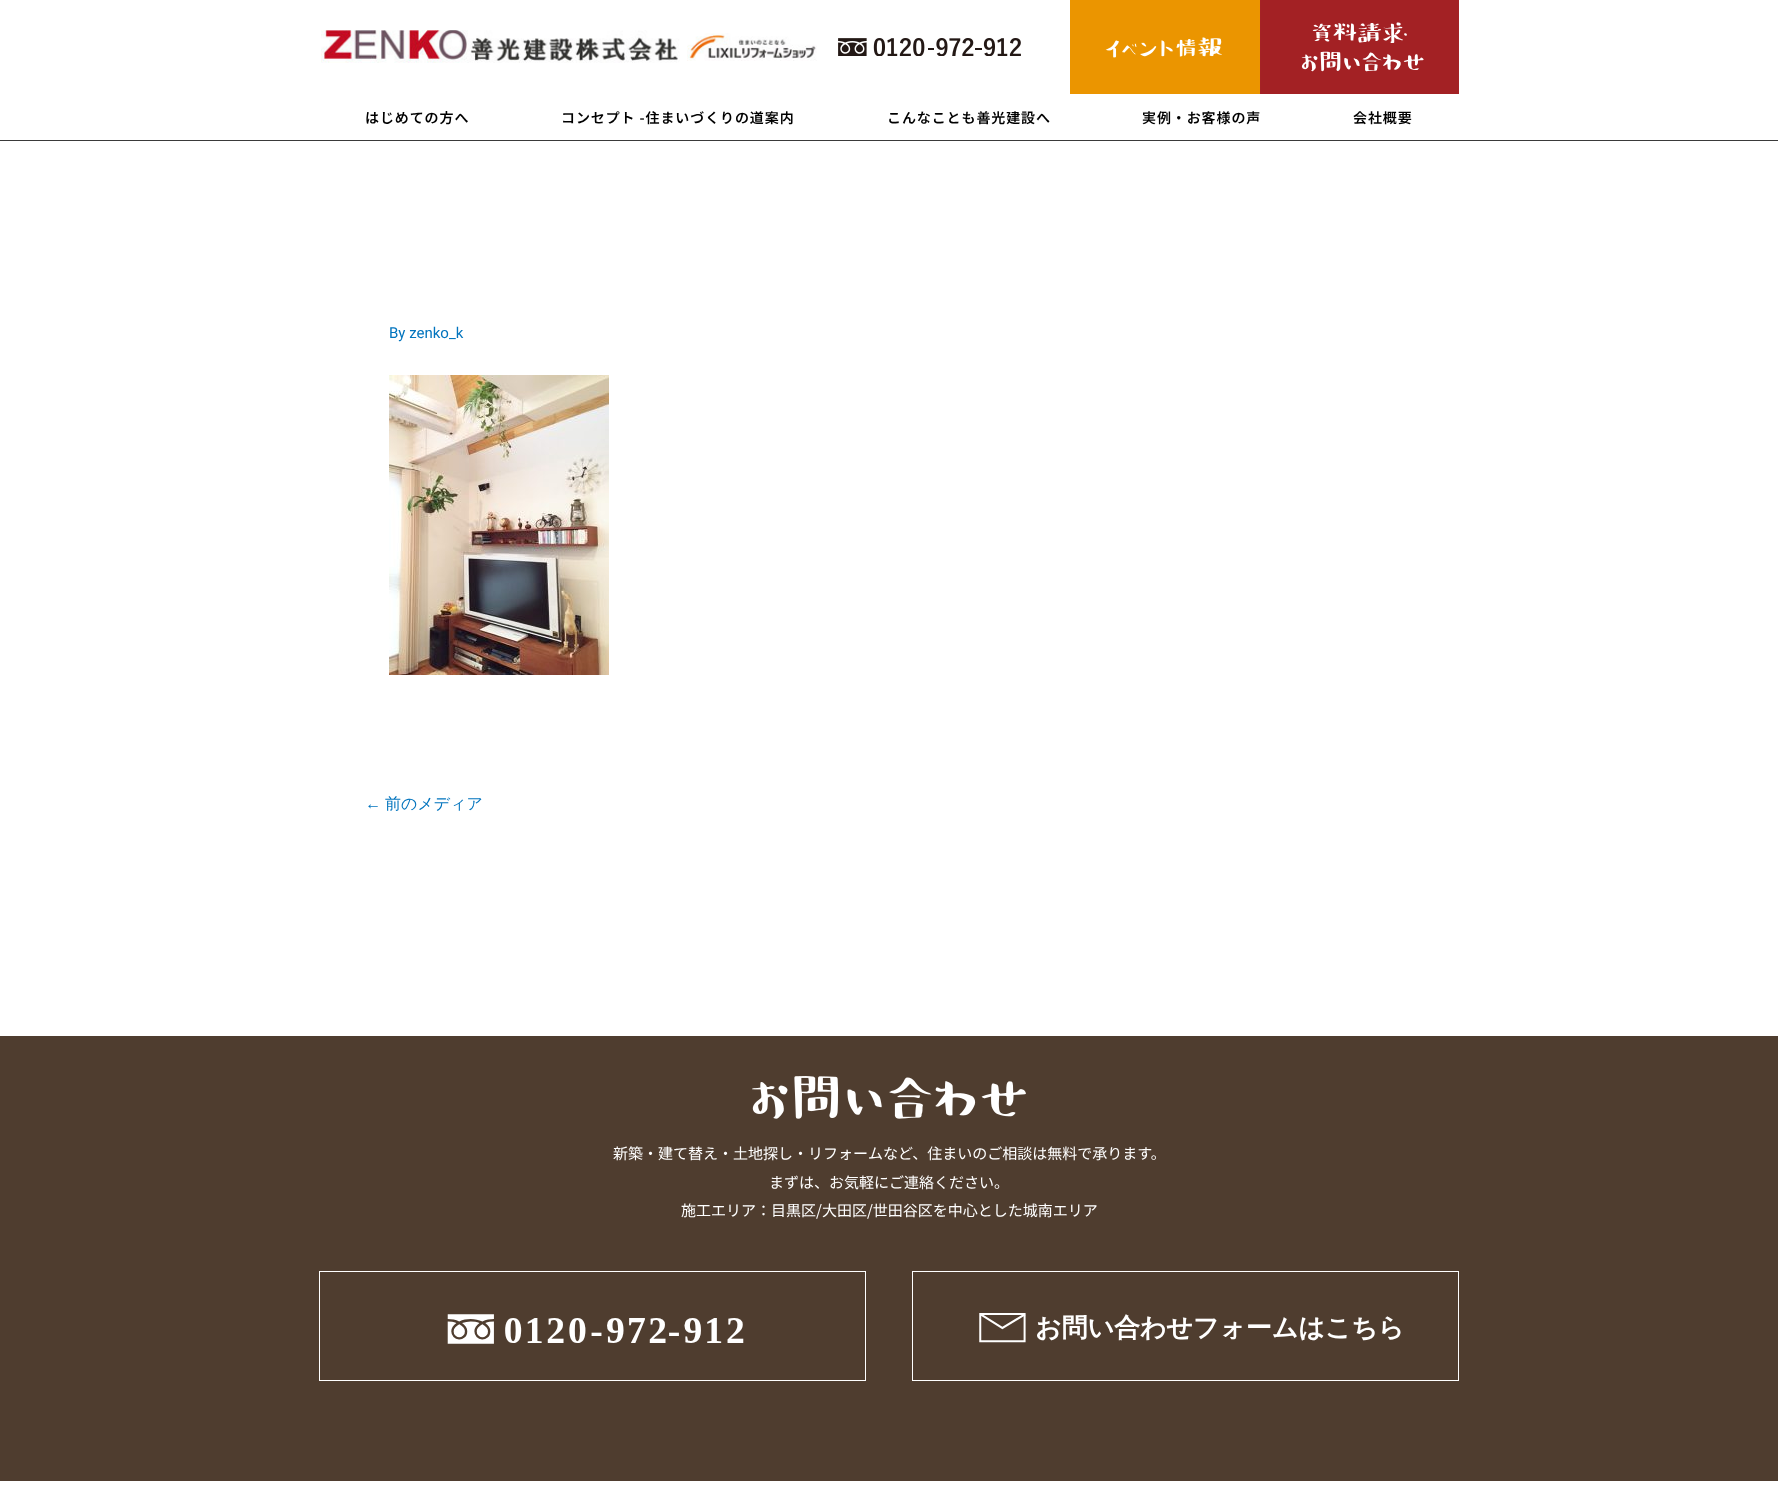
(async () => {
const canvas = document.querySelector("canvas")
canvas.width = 1778
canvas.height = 1502
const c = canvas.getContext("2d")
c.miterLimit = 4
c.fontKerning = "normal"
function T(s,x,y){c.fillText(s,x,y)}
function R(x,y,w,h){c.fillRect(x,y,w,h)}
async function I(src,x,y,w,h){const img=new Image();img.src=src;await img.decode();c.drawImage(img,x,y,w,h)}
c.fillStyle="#fff"
R(0,0,1778,1502)
await I("1.png",321,30,359,33)
await I("2.png",687,33,130,28)
await I("3.png",838,38,183,18)
await I("4.png",1070,0,190,94)
await I("5.png",1260,0,199,94)
c.fillStyle="#3a3a3a"
R(0,140,1778,1)
c.letterSpacing="0.9px"
c.font="600 14px Noto Sans JP"
c.fillStyle="#000"
T("はじめての方へ",365,123)
T("コンセプト -住まいづくりの道案内",561,123)
T("こんなことも善光建設へ",887,123)
T("実例・お客様の声",1142,123)
T("会社概要",1353,123)
c.letterSpacing="0px"
c.font="15px Roboto"
c.fillStyle="#0274be"
T("By zenko_k",389,338)
await I("6.png",389,375,220,300)
c.font="16px Liberation Sans"
T("←",365,809)
c.font="500 16px WenQuanYi Zen Hei"
T("前のメディア",385,809)
c.fillStyle="#4f3d2f"
R(0,1036,1778,445)
await I("7.png",752,1076,274,43)
c.font="15px Noto Sans JP"
c.fillStyle="#fff"
T("新築・建て替え・土地探し・リフォームなど、住まいのご相談は無料で承ります。",613,1159)
T("まずは、お気軽にご連絡ください。",769,1188)
T("施工エリア：目黒区/大田区/世田谷区を中心とした城南エリア",681,1216)
await I("8.png",319,1271,547,110)
await I("9.png",912,1271,547,110)
})()
